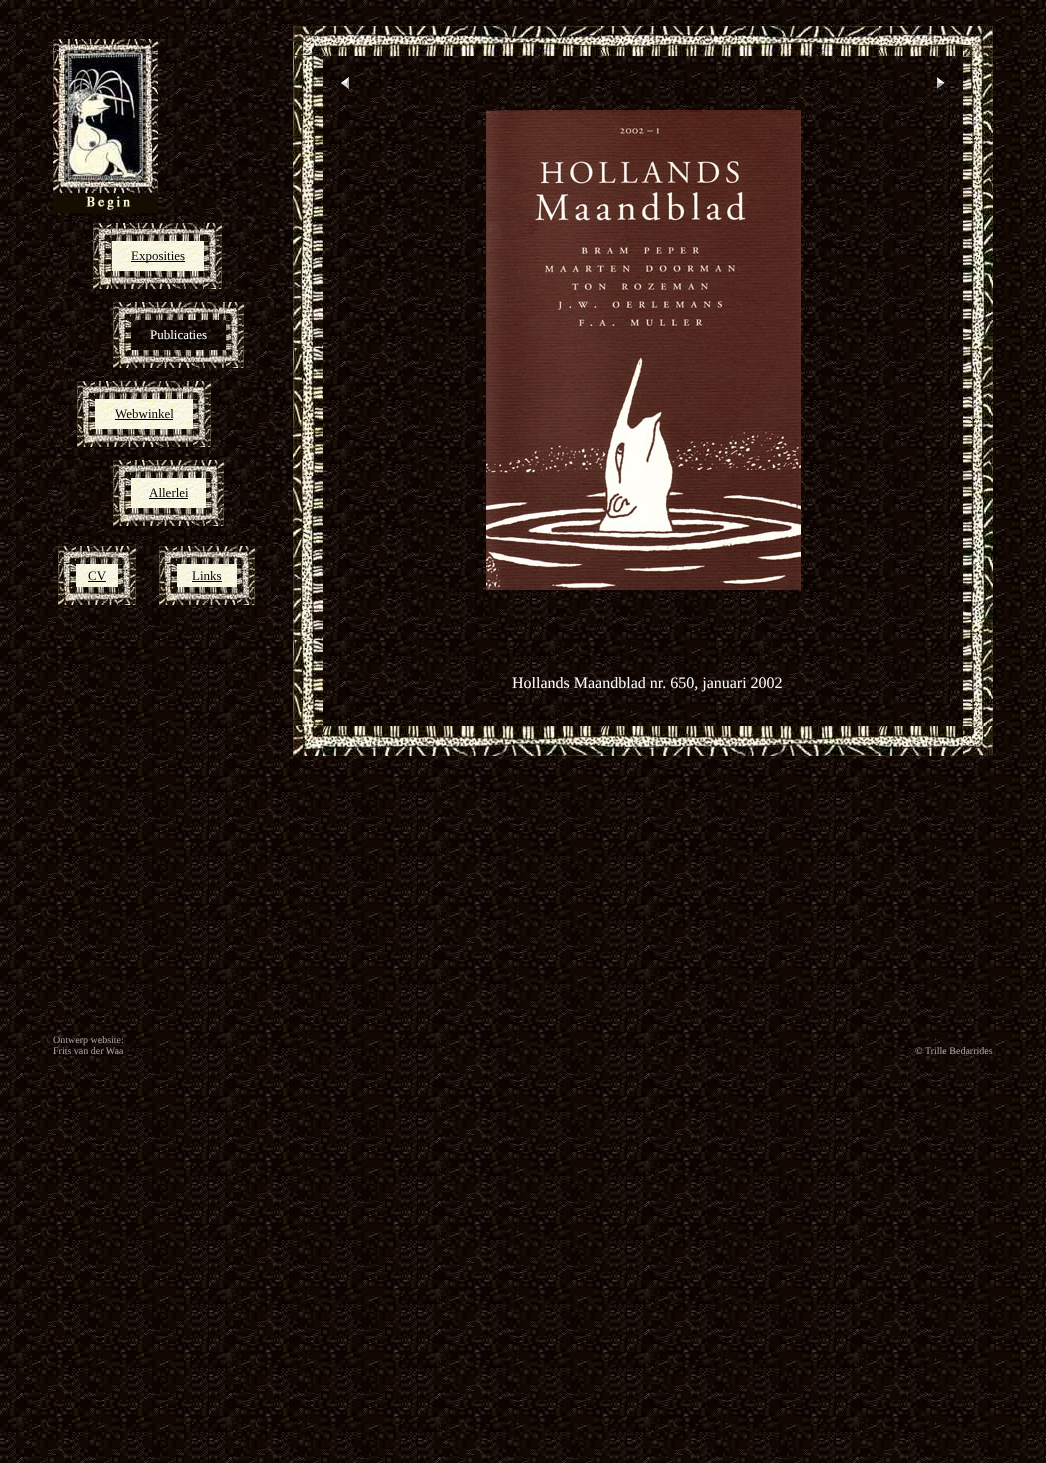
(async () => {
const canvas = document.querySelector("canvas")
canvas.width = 1046
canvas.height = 1463
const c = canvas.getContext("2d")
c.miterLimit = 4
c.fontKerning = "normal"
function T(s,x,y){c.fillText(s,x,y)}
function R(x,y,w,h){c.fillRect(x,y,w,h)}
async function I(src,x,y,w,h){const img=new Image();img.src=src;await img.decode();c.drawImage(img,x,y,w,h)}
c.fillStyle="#fff"
R(0,0,1046,1463)
await I("1.png",0,0,1046,1463)
await I("2.png",53,39,105,174)
await I("3.png",158,39,135,180)
await I("4.png",53,223,40,66)
await I("5.png",93,223,19,18)
await I("6.png",112,223,92,18)
await I("7.png",204,223,18,18)
await I("8.png",222,223,71,66)
await I("9.png",93,241,19,30)
await I("10.png",112,241,92,30)
c.fillStyle="#000"
R(131,261,54,1)
c.font="13px Liberation Serif"
T("Exposities",131,260)
await I("11.png",204,241,18,30)
await I("12.png",93,271,19,18)
await I("13.png",112,271,92,18)
await I("14.png",204,271,18,18)
await I("15.png",53,302,60,66)
await I("16.png",113,302,18,18)
await I("17.png",131,302,95,18)
await I("7.png",226,302,18,18)
await I("18.png",244,302,49,66)
await I("19.png",113,320,18,30)
await I("20.png",131,320,95,30)
c.fillStyle="#fff"
T("Publicaties",150,339)
c.fillStyle="#000"
R(150,340,57,1)
await I("11.png",226,320,18,30)
await I("21.png",113,350,18,18)
await I("22.png",131,350,95,18)
await I("14.png",226,350,18,18)
await I("23.png",53,381,24,66)
await I("16.png",77,381,18,18)
await I("24.png",95,381,98,18)
await I("7.png",193,381,18,18)
await I("25.png",211,381,82,66)
await I("19.png",77,399,18,30)
await I("26.png",95,399,98,30)
T("Webwinkel",115,418)
R(115,419,58,1)
await I("11.png",193,399,18,30)
await I("21.png",77,429,18,18)
await I("27.png",95,429,98,18)
await I("14.png",193,429,18,18)
await I("15.png",53,460,60,66)
await I("16.png",113,460,18,18)
await I("28.png",131,460,75,18)
await I("7.png",206,460,18,18)
await I("29.png",224,460,69,66)
await I("19.png",113,478,18,30)
await I("30.png",131,478,75,30)
T("Allerlei",149,497)
R(149,498,39,1)
await I("11.png",206,478,18,30)
await I("21.png",113,508,18,18)
await I("31.png",131,508,75,18)
await I("14.png",206,508,18,18)
await I("32.png",53,546,5,59)
await I("16.png",58,546,18,18)
await I("33.png",76,546,42,18)
await I("7.png",118,546,18,18)
await I("34.png",136,546,23,59)
await I("16.png",159,546,18,18)
await I("35.png",177,546,60,18)
await I("7.png",237,546,18,18)
await I("36.png",255,546,38,59)
await I("37.png",58,564,18,23)
await I("38.png",76,564,42,23)
T("CV",88,580)
R(88,581,18,1)
await I("39.png",118,564,18,23)
await I("37.png",159,564,18,23)
await I("40.png",177,564,60,23)
T("Links",192,580)
R(192,581,30,1)
await I("39.png",237,564,18,23)
await I("21.png",58,587,18,18)
await I("41.png",76,587,42,18)
await I("14.png",118,587,18,18)
await I("21.png",159,587,18,18)
await I("42.png",177,587,60,18)
await I("14.png",237,587,18,18)
await I("43.png",293,26,30,30)
await I("44.png",323,26,640,30)
await I("45.png",963,26,30,30)
await I("46.png",293,56,30,670)
await I("47.png",323,56,640,670)
await I("48.png",341,77,8,12)
await I("49.png",937,77,8,12)
await I("50.png",486,110,315,480)
c.font="16px Liberation Serif"
c.fillStyle="#fff"
T("Hollands Maandblad nr. 650, januari 2002",512,688)
await I("51.png",963,56,30,670)
await I("52.png",293,726,30,30)
await I("53.png",323,726,640,30)
await I("54.png",963,726,30,30)
c.font="10px Liberation Serif"
c.fillStyle="#a9a9a9"
T("Ontwerp website:",53,1043)
T("Frits van der Waa",53,1054)
c.fillStyle="#000"
R(53,1055,70,1)
c.fillStyle="#a9a9a9"
T("© Trille Bedarrides",915,1054)
})()
